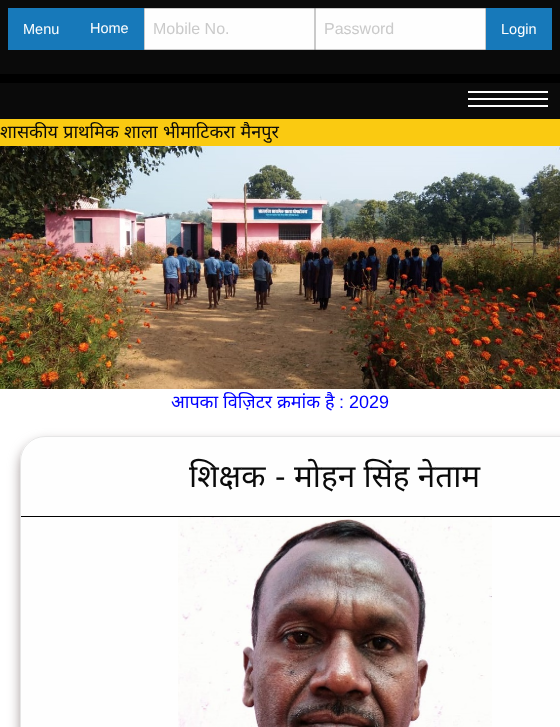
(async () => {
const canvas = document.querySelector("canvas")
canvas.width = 560
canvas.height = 727
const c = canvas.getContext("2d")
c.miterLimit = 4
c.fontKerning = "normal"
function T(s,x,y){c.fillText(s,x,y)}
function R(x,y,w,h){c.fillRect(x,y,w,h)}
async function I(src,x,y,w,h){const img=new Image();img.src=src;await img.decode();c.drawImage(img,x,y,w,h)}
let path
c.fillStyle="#fff"
R(0,0,560,727)
c.fillStyle="#0a0a0a"
R(0,0,560,74)
c.fillStyle="#1779ba"
R(8,8,136,42)
c.font="14.5px Liberation Sans"
c.fillStyle="#fefefe"
T("Menu",23,34)
T("Home",90,33)
c.beginPath()
c.rect(144.5,8.5,170,41)
c.fill()
c.strokeStyle="#cacaca"
c.stroke()
c.font="16px Liberation Sans"
c.fillStyle="#cacaca"
T("Mobile No.",153,34)
c.fillStyle="#fefefe"
c.beginPath()
c.rect(315.5,8.5,170,41)
c.fill()
c.stroke()
c.fillStyle="#cacaca"
T("Password",324,34)
c.fillStyle="#1779ba"
R(486,8,66,42)
c.font="14.5px Liberation Sans"
c.fillStyle="#fefefe"
T("Login",501,34)
c.fillStyle="#000"
R(0,74,560,9)
c.fillStyle="#0a0a0a"
R(0,83,560,36)
c.fillStyle="#fefefe"
R(468,105,80,2)
R(468,98,80,2)
R(468,91,80,2)
c.fillStyle="#faca11"
R(0,119,560,27)
c.wordSpacing="0.5px"
c.font="18px Noto Sans"
c.fillStyle="#0a0a0a"
T("शासकीय प्राथमिक शाला भीमाटिकरा मैनपुर",0,138)
await I("1.png",0,146,560,243)
c.wordSpacing="0px"
c.fillStyle="#00f"
T("आपका",171,408)
T("व‍िज़‍िटर",223,408)
T("क्रमांक",277,408)
T("है",325,408)
c.font="18px Liberation Sans"
T(": 2029",339,408)
c.fillStyle="#a79c9c"
c.filter="blur(6px)"
c.beginPath()
c.roundRect(20,442,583,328,25)
c.fill()
c.filter="none"
c.fillStyle="#fefefe"
path = new Path2D("M45 436h515v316h-515c-14 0-25-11-25-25v-266c0-14 11-25 25-25z")
c.fill(path)
c.beginPath()
c.roundRect(20.5,436.5,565,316,24.5)
c.strokeStyle="#e6e6e6"
c.stroke()
c.fillStyle="#000"
R(21,516,539,1)
c.font="31.5px Noto Sans"
c.fillStyle="#0a0a0a"
T("शिक्षक",189,487)
c.font="31.5px Liberation Sans"
T("-",275,487)
c.font="31.5px Noto Sans"
T("मोहन सिंह नेताम",294,487)
await I("2.png",178,517,314,210)
})()
